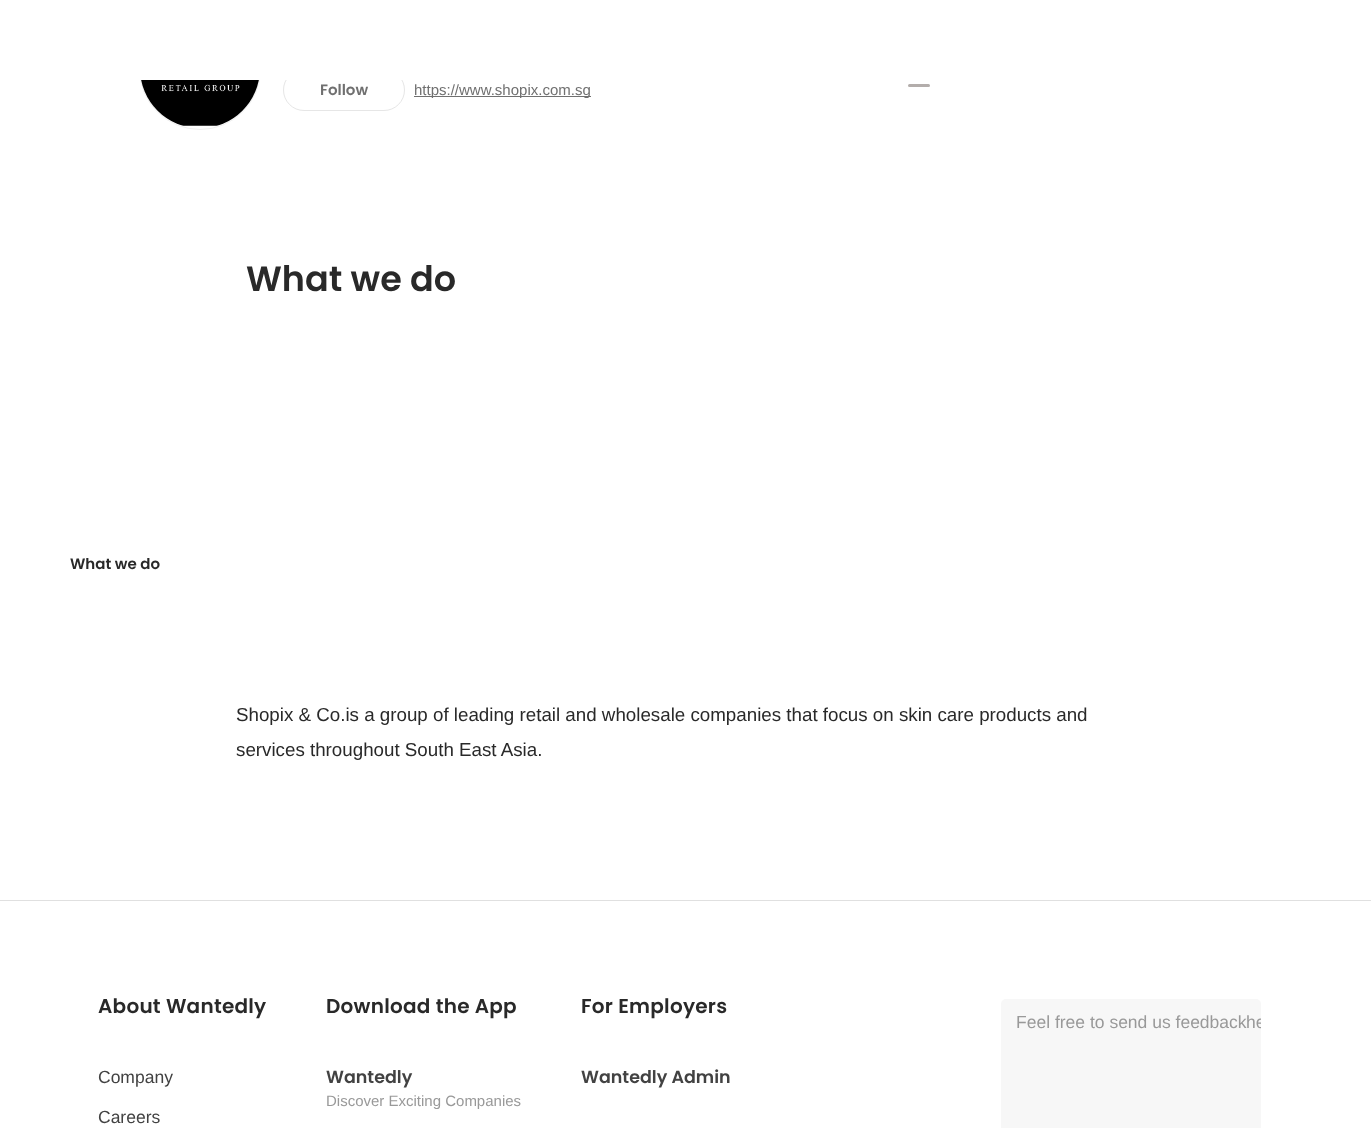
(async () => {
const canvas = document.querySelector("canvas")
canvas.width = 1371
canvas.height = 1128
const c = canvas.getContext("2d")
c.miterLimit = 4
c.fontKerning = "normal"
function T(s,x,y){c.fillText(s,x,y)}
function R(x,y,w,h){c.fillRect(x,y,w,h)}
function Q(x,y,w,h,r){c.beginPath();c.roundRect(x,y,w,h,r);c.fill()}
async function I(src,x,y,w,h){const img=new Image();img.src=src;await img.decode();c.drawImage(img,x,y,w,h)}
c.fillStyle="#fff"
R(0,0,1371,1128)
c.beginPath()
c.arc(200,69,60.5,0,7)
c.strokeStyle="#f0f0f0"
c.stroke()
c.beginPath()
c.roundRect(283.5,69.5,121,41,20.5)
c.strokeStyle="#e6e6e6"
c.stroke()
R(139,8,264,72)
await I("1.png",141,80,118,46)
c.font="600 15px Poppins"
c.fillStyle="#707070"
T("Follow",320,95)
R(414,96,177,1)
c.font="15px Liberation Sans"
T("https://www.shopix.com.sg",414,95)
c.fillStyle="#b3adab"
Q(908,84,22,3,1.5)
c.font="600 15px Poppins"
c.fillStyle="#292929"
T("What we do",70,569)
c.font="600 35px Poppins"
T("What we do",246,291)
c.font="18.75px Liberation Sans"
T("Shopix & Co.is a group of leading retail and wholesale companies that focus on skin care products and",236,721)
T("services throughout South East Asia.",236,756)
c.fillStyle="#e0e0e0"
R(0,900,1371,1)
c.letterSpacing="0.25px"
c.font="600 20px Poppins"
c.fillStyle="#292929"
T("About Wantedly",98,1013)
c.letterSpacing="0px"
c.font="17.5px Liberation Sans"
c.fillStyle="#424242"
T("Company",98,1083)
T("Careers",98,1123)
c.letterSpacing="0.25px"
c.font="600 20px Poppins"
c.fillStyle="#292929"
T("Download the App",326,1013)
c.letterSpacing="0px"
c.font="600 17.5px Poppins"
c.fillStyle="#424242"
T("Wantedly",326,1083)
c.font="15px Liberation Sans"
c.fillStyle="#999"
T("Discover Exciting Companies",326,1106)
c.letterSpacing="0.25px"
c.font="600 20px Poppins"
c.fillStyle="#292929"
T("For Employers",581,1013)
c.letterSpacing="0px"
c.font="600 17.5px Poppins"
c.fillStyle="#424242"
T("Wantedly Admin",581,1083)
c.fillStyle="#f7f7f7"
Q(1001,999,260,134,5)
c.font="17.5px Liberation Sans"
c.fillStyle="#999"
T("Feel free to send us feedback",1016,1028)
c.save()
c.beginPath()
c.roundRect(1001,999,260,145,5)
c.clip()
T("he",1246,1028)
c.restore()
})()
